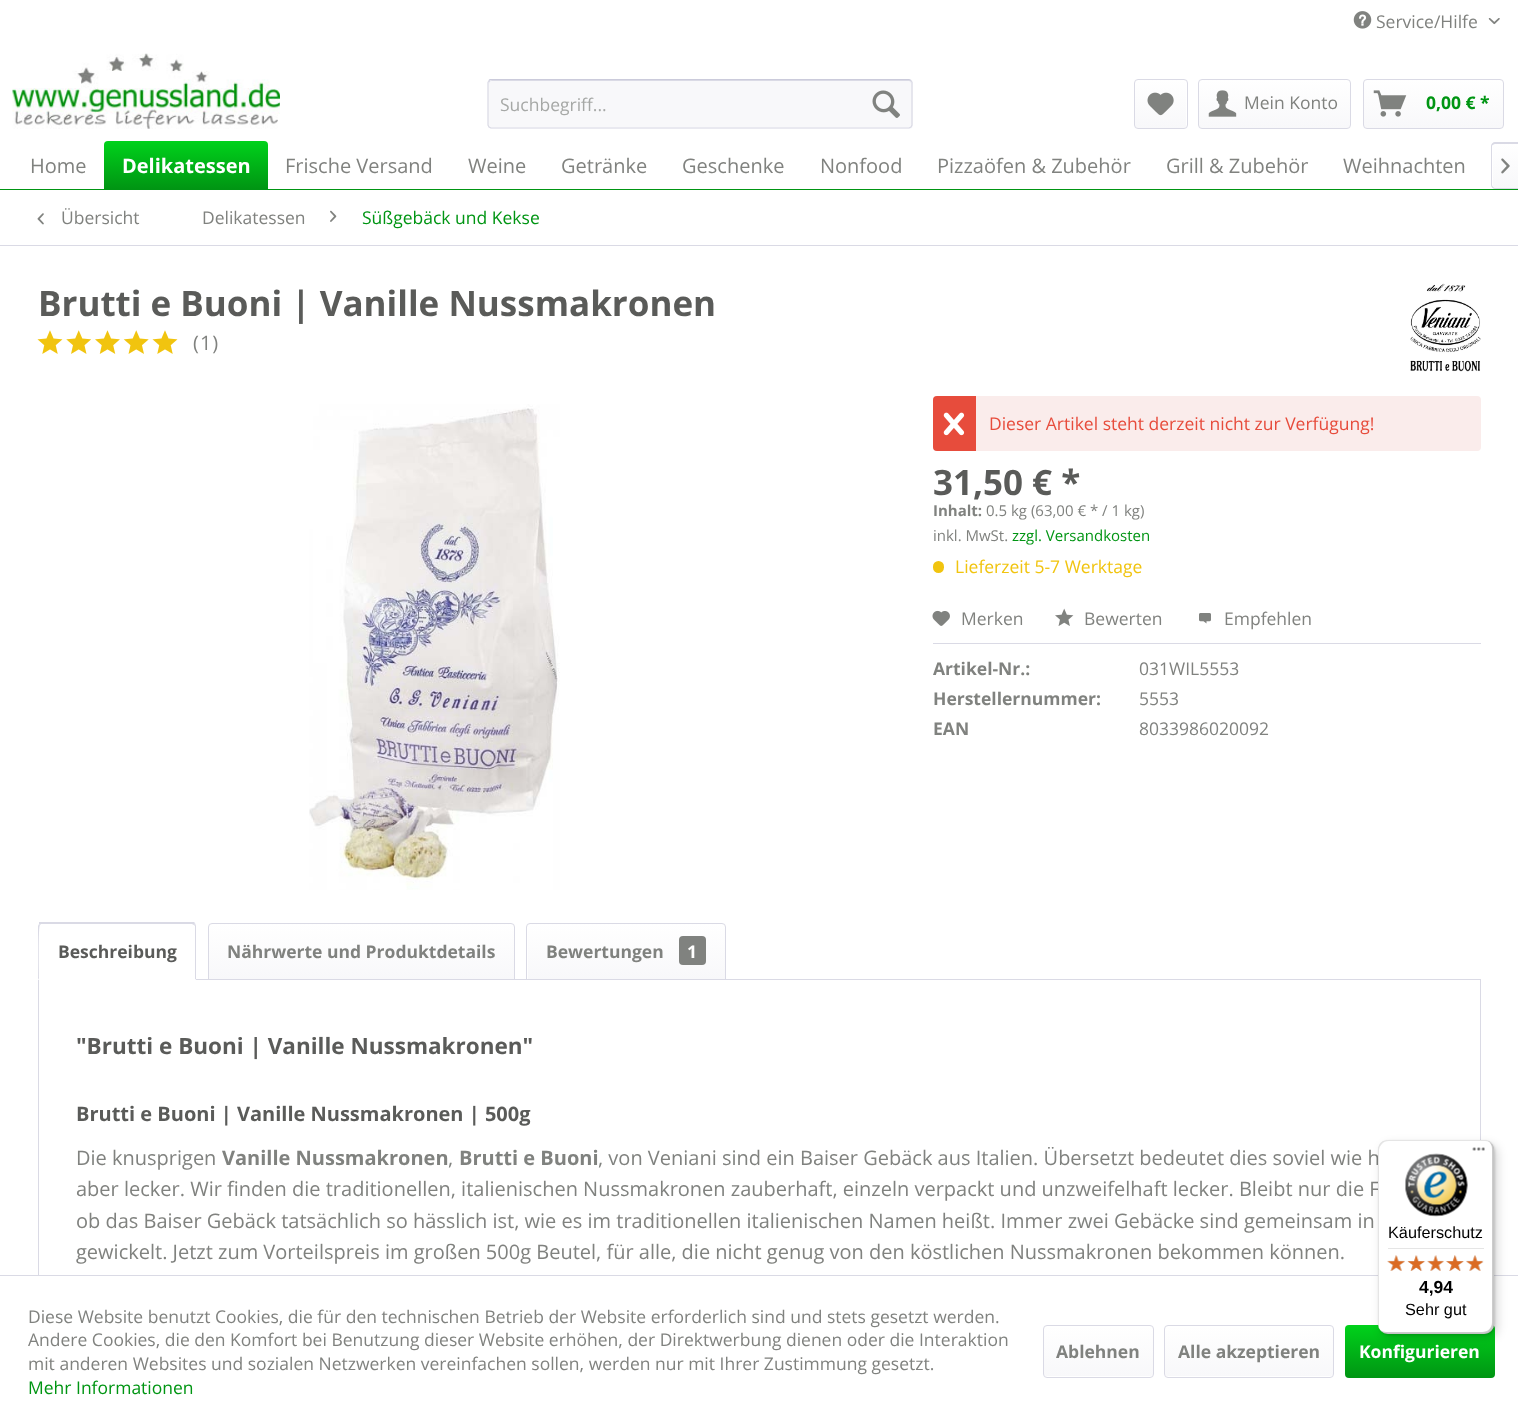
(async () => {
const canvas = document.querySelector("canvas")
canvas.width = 1518
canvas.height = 1426
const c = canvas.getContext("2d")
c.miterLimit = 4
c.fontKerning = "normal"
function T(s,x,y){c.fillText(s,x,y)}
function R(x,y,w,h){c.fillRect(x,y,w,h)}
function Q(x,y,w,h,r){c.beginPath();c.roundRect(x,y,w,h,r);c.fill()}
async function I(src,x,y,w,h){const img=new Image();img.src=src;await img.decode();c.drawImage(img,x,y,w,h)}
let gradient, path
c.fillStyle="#fff"
R(0,0,1518,1426)
await I("1.png",1353,11,19,18)
c.font="17.5px Open Sans"
c.fillStyle="#80827f"
T("Service/Hilfe",1376,28)
await I("2.png",1488,18,12,7)
await I("3.png",12,53,268,76)
c.fillStyle="#f8f8fa"
Q(488,79,425,50,4)
c.fillStyle="#dadae5"
path = new Path2D("M491 81h418c1 0 2 1 2 3c0-2 0-4-3-4h-416l-3 1v3c0-2 1-3 2-3z")
c.fill(path)
path = new Path2D("M489 80.5l1-1h140.5h278.5l2 1")
c.strokeStyle="#cbcbdb"
c.lineWidth=1.2
c.stroke(path)
path = new Path2D("M911 80.5l1 2v42.5l-1 2l-2 1h-418l-2-1l-1-2v-42.5l1-2")
c.strokeStyle="#dadae5"
c.stroke(path)
c.fillStyle="#a6a8a6"
T("Suchbegriff...",500,111)
await I("4.png",872,90,28,28)
gradient = c.createLinearGradient(1161,80,1161,128)
gradient.addColorStop(0,"#fff")
gradient.addColorStop(1,"#f8f8fa")
c.fillStyle = gradient
Q(1135,80,51,48,2.5)
c.beginPath()
c.roundRect(1134.5,79.5,53,49,3.5)
c.lineWidth=1
c.stroke()
await I("5.png",1147,92,27,24)
gradient = c.createLinearGradient(1274,80,1274,128)
gradient.addColorStop(0,"#fff")
gradient.addColorStop(1,"#f8f8fa")
c.fillStyle = gradient
Q(1199,80,151,48,2.5)
c.beginPath()
c.roundRect(1198.5,79.5,152,49,3.5)
c.stroke()
await I("6.png",1208,90,29,27)
c.fillStyle="#80827f"
T("Mein Konto",1244,109)
gradient = c.createLinearGradient(1433,80,1433,128)
gradient.addColorStop(0,"#fff")
gradient.addColorStop(1,"#f8f8fa")
c.fillStyle = gradient
Q(1364,80,139,48,2.5)
c.beginPath()
c.roundRect(1363.5,79.5,140,49,3.5)
c.stroke()
await I("7.png",1373,90,34,27)
c.font="bold 17.5px Open Sans"
c.fillStyle="#009513"
T("0,00 € *",1426,109)
R(0,189,1518,1)
c.font="20px Open Sans"
c.fillStyle="#80827f"
T("Home",30,173)
gradient = c.createLinearGradient(186,141,186,189)
gradient.addColorStop(0,"#00d21b")
gradient.addColorStop(1,"#009513")
c.fillStyle = gradient
c.beginPath()
c.roundRect(104,141,164,48,[4,4,0,0])
c.fill()
c.font="bold 20px Open Sans"
c.fillStyle="#fff"
T("Delikatessen",122,173)
c.font="20px Open Sans"
c.fillStyle="#80827f"
T("Frische Versand",285,173)
T("Weine",468,173)
T("Getränke",561,173)
T("Geschenke",682,173)
T("Nonfood",820,173)
T("Pizzaöfen & Zubehör",937,173)
T("Grill & Zubehör",1166,173)
T("Weihnachten",1343,173)
gradient = c.createLinearGradient(1506,144,1506,188)
gradient.addColorStop(0,"#fff")
gradient.addColorStop(1,"#f8f8fa")
c.fillStyle = gradient
path = new Path2D("M1495.5 144h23.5v44h-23.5c-1.5 0-2.5-1-2.5-2.5v-39c0-1.5 1-2.5 2.5-2.5z")
c.fill(path)
c.fillStyle="#dadae5"
path = new Path2D("M1495 142h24v47h-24c-2 0-4-2-4-4v-39c0-2 2-4 4-4zm0 2h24v44h-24c-1 0-3-2-3-3v-39c0-1 2-2 3-2z")
c.fill(path,"evenodd")
await I("8.png",1501,158,9,16)
R(0,245,1518,1)
await I("9.png",37,213,7,12)
c.font="17.5px Open Sans"
c.fillStyle="#80827f"
T("Übersicht",61,224)
T("Delikatessen",202,224)
await I("10.png",330,210,7,12)
c.fillStyle="#009513"
T("Süßgebäck und Kekse",362,224)
c.font="bold 35px Open Sans"
c.fillStyle="#5a5b59"
T("Brutti e Buoni | Vanille Nussmakronen",38,316)
await I("11.png",1410,283,71,89)
await I("12.png",37,330,26,24)
await I("13.png",66,330,25,24)
await I("14.png",95,330,25,24)
await I("15.png",123,330,26,24)
await I("12.png",152,330,26,24)
c.letterSpacing="1px"
c.font="20px Open Sans"
c.fillStyle="#80827f"
T("(1)",193,350)
await I("16.png",309,404,251,486)
c.fillStyle="#faeceb"
Q(933,396,548,55,4)
c.fillStyle="#e74c3c"
c.beginPath()
c.roundRect(933,396,43,55,[4,0,0,4])
c.fill()
await I("17.png",943,412,22,24)
c.letterSpacing="0px"
c.font="17.5px Open Sans"
T("Dieser Artikel steht derzeit nicht zur Verfügung!",989,430)
c.font="bold 35px Open Sans"
c.fillStyle="#5a5b59"
T("31,50 € *",933,495)
c.font="bold 15px Open Sans"
c.fillStyle="#80827f"
T("Inhalt:",933,516)
c.font="15px Open Sans"
T("0.5 kg (63,00 € * / 1 kg)",986,516)
T("inkl. MwSt.",933,541)
c.fillStyle="#009513"
T("zzgl. Versandkosten",1012,541)
c.fillStyle="#f1c40f"
Q(933,561,11,12,5.5)
c.font="17.5px Open Sans"
T("Lieferzeit 5-7 Werktage",955,573)
c.fillStyle="#dadae5"
R(933,643,548,1)
await I("18.png",932,610,18,16)
c.fillStyle="#80827f"
T("Merken",961,625)
await I("19.png",1055,608,19,18)
T("Bewerten",1084,625)
await I("20.png",1199,613,12,11)
T("Empfehlen",1224,625)
c.font="bold 17.5px Open Sans"
T("Artikel-Nr.:",933,675)
c.font="17.5px Open Sans"
T("031WIL5553",1139,675)
c.font="bold 17.5px Open Sans"
T("Herstellernummer:",933,705)
c.font="17.5px Open Sans"
T("5553",1139,705)
c.font="bold 17.5px Open Sans"
T("EAN",933,735)
c.font="17.5px Open Sans"
T("8033986020092",1139,735)
c.strokeRect(38.5,979.5,1442,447)
c.fillStyle="#fff"
c.beginPath()
c.roundRect(38,923,158,57,[4,4,0,0])
c.fill()
c.fillStyle="#dadae5"
path = new Path2D("M41 924l-1 1l-1-1v-2h155l1 1l-1 2l-2-1z")
c.fill(path)
path = new Path2D("M195 923l1 3v54l-1-1v-53l-1-1z")
c.fill(path)
c.fillStyle="#fff"
path = new Path2D("M38 980h158l-1-1h-156v-1z")
c.fill(path)
c.fillStyle="#dadae5"
path = new Path2D("M38 980v-54l1-2l1 1c-2 1-1 48-1 53z")
c.fill(path)
c.font="bold 17.5px Open Sans"
c.fillStyle="#5a5b59"
T("Beschreibung",58,958)
gradient = c.createLinearGradient(361,924,361,979)
gradient.addColorStop(0,"#fff")
gradient.addColorStop(1,"#f8f8fa")
c.fillStyle = gradient
c.beginPath()
c.roundRect(209,924,305,55,[2.5,2.5,0,0])
c.fill()
c.beginPath()
c.roundRect(208.5,923.5,306,56,[3.5,3.5,0,0])
c.stroke()
c.fillStyle="#80827f"
T("Nährwerte und Produktdetails",227,958)
gradient = c.createLinearGradient(626,924,626,979)
gradient.addColorStop(0,"#fff")
gradient.addColorStop(1,"#f8f8fa")
c.fillStyle = gradient
c.beginPath()
c.roundRect(528,924,197,55,[2.5,2.5,0,0])
c.fill()
c.beginPath()
c.roundRect(526.5,923.5,199,56,[3.5,3.5,0,0])
c.stroke()
c.fillStyle="#80827f"
T("Bewertungen",546,958)
Q(679,936,27,29,4)
c.fillStyle="#fff"
T("1",687,958)
c.font="bold 22.5px Open Sans"
c.fillStyle="#5a5b59"
T("\"Brutti e Buoni | Vanille Nussmakronen\"",76,1054)
c.font="bold 20px Open Sans"
T("Brutti e Buoni | Vanille Nussmakronen | 500g",76,1121)
c.font="20px Open Sans"
c.fillStyle="#80827f"
T("Die knusprigen",76,1165)
c.font="bold 20px Open Sans"
T("Vanille Nussmakronen",222,1165)
c.font="20px Open Sans"
T(",",448,1165)
c.font="bold 20px Open Sans"
T("Brutti e Buoni",459,1165)
c.font="20px Open Sans"
T(", von Veniani sind ein Baiser Gebäck aus Italien. Übersetzt bedeutet dies soviel wie h",598,1165)
T("aber lecker. Wir finden die traditionellen, italienischen Nussmakronen zauberhaft, einzeln verpackt und unzweifelhaft lecker. Bleibt nur die F",76,1196)
T("ob das Baiser Gebäck tatsächlich so hässlich ist, wie es im traditionellen italienischen Namen heißt. Immer zwei Gebäcke sind gemeinsam in",76,1228)
T("gewickelt. Jetzt zum Vorteilspreis im großen 500g Beutel, für alle, die nicht genug von den köstlichen Nussmakronen bekommen können.",76,1259)
c.fillStyle="#fff"
R(38,1276,1443,150)
c.fillStyle="#dadae5"
R(0,1275,1518,1)
gradient = c.createLinearGradient(1420,1325,1420,1378)
gradient.addColorStop(0,"#00d21b")
gradient.addColorStop(1,"#009513")
c.fillStyle = gradient
Q(1345,1325,150,53,4)
c.fillStyle="#00000026"
c.filter="blur(5px)"
c.beginPath()
c.roundRect(1381,1144,117,194,10)
c.fill()
c.filter="none"
c.filter="blur(1px)"
c.beginPath()
c.roundRect(1379,1141,116,194,10)
c.fill()
c.filter="none"
c.fillStyle="#fff"
Q(1378,1140,116,194,10)
c.fillStyle="#0000001a"
path = new Path2D("M1389 1141h96c3 0 5 1 7 2c-2-2-5-3-8-3h-96c-6 0-10 4-10 10v174c0 2 1 5 2 6c-1-1-1-3-1-5v-174c0-5 4-10 10-10z")
c.fill(path)
c.fillStyle="#00000033"
path = new Path2D("M1380 1330c2 2 5 4 8 4h96c6 0 10-4 10-10v-174c0-4-2-7-6-9c3 2 4 5 4 8v173c0 6-4 10-10 10h-96c-2 0-4-1-6-2z")
c.fill(path)
c.fillStyle="#32323233"
path = new Path2D("M1382 1332c1 1 4 2 6 2h96c6 0 10-4 10-10v-174c0-3-1-6-4-8c2 2 3 5 3 7v174c0 6-4 10-10 10h-96c-2 0-4 0-5-1z")
c.fill(path)
c.fillStyle="#ffffff4d"
path = new Path2D("M1382 1332c1 1 4 2 6 2h96c6 0 10-4 10-10v-174c0-3-1-6-4-8c2 2 3 5 3 7v174c0 6-4 10-10 10h-96c-2 0-4 0-5-1z")
c.fill(path)
await I("21.png",1472,1147,13,4)
await I("22.png",1405,1153,63,64)
c.font="16.25px Liberation Sans"
c.fillStyle="#000"
T("Käuferschutz",1388,1238)
c.fillStyle="#e5e5e5"
R(1388,1248,96,1)
await I("23.png",1387,1255,18,16)
await I("24.png",1408,1255,17,16)
await I("25.png",1427,1255,17,16)
await I("26.png",1446,1255,18,16)
await I("27.png",1466,1255,18,16)
await I("28.png",1387,1255,18,16)
await I("29.png",1407,1255,19,16)
await I("30.png",1427,1255,17,16)
await I("31.png",1446,1255,18,16)
await I("32.png",1466,1255,17,16)
c.font="bold 17.5px Liberation Sans"
c.fillStyle="#000"
T("4,94",1419,1293)
c.font="16.25px Liberation Sans"
T("Sehr gut",1405,1315)
c.font="17.5px Open Sans"
c.fillStyle="#80827f"
T("Diese Website benutzt Cookies, die für den technischen Betrieb der Website erforderlich sind und stets gesetzt werden.",28,1323)
T("Andere Cookies, die den Komfort bei Benutzung dieser Website erhöhen, der Direktwerbung dienen oder die Interaktion",28,1346)
T("mit anderen Websites und sozialen Netzwerken vereinfachen sollen, werden nur mit Ihrer Zustimmung gesetzt.",28,1370)
c.fillStyle="#009513"
T("Mehr Informationen",28,1394)
gradient = c.createLinearGradient(1098,1326,1098,1376)
gradient.addColorStop(0,"#fff")
gradient.addColorStop(1,"#f8f8fa")
c.fillStyle = gradient
Q(1044,1326,109,50,2.5)
c.beginPath()
c.roundRect(1043.5,1325.5,110,52,3.5)
c.stroke()
c.font="bold 17.5px Open Sans"
c.fillStyle="#80827f"
T("Ablehnen",1056,1358)
gradient = c.createLinearGradient(1249,1326,1249,1376)
gradient.addColorStop(0,"#fff")
gradient.addColorStop(1,"#f8f8fa")
c.fillStyle = gradient
Q(1165,1326,168,50,2.5)
c.beginPath()
c.roundRect(1164.5,1325.5,169,52,3.5)
c.stroke()
c.fillStyle="#80827f"
T("Alle akzeptieren",1178,1358)
c.fillStyle="#fff"
T("Konfigurieren",1359,1358)
})()
